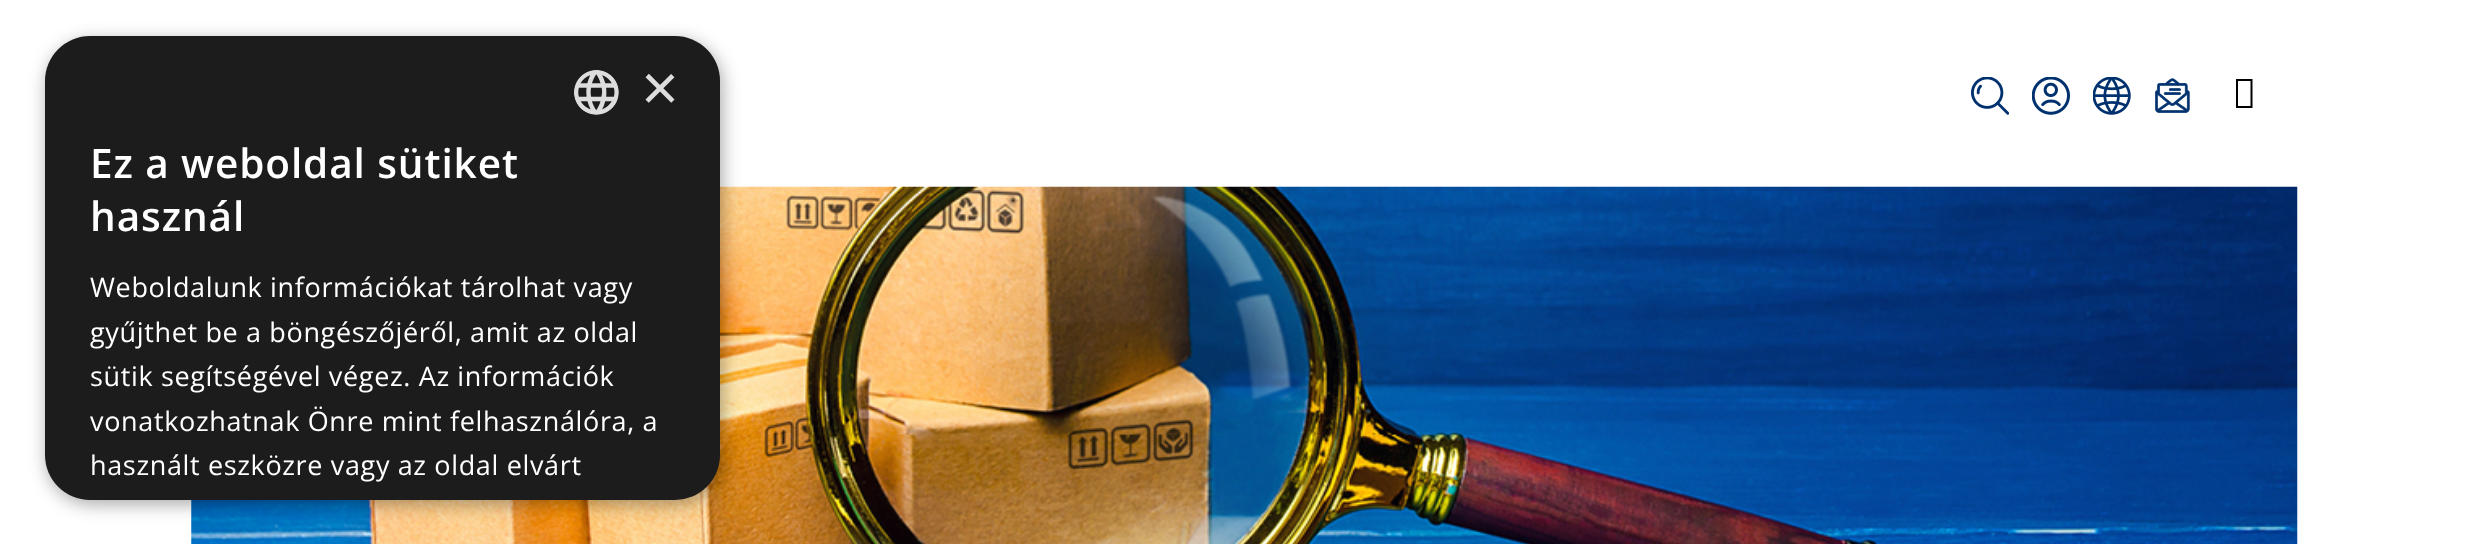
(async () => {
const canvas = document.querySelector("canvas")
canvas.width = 2488
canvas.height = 544
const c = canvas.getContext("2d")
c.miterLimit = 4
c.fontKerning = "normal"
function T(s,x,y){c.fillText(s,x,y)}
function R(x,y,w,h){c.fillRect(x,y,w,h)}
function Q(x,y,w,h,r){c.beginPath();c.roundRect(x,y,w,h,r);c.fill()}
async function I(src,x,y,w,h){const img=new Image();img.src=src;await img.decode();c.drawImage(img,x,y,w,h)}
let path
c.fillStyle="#fff"
R(0,0,2488,544)
await I("6.png",191,186,2107,358)
c.fillStyle="#00000059"
c.filter="blur(9px)"
c.beginPath()
c.roundRect(47,41,675,463,45)
c.fill()
c.filter="none"
c.fillStyle="#1c1c1c"
Q(45,36,675,464,45)
await I("1.png",574,70,45,45)
c.font="65px Liberation Sans"
c.fillStyle="#ddd"
T("×",641,110)
c.letterSpacing="0.9px"
c.font="600 40.5px Open Sans"
c.fillStyle="#fff"
T("Ez a weboldal sütiket",90,178)
T("használ",90,231)
c.letterSpacing="0.65px"
c.font="27px Open Sans"
T("Weboldalunk információkat tárolhat vagy",90,297)
T("gyűjthet be a böngészőjéről, amit az oldal",90,342)
T("sütik segítségével végez. Az információk",90,386)
T("vonatkozhatnak Önre mint felhasználóra, a",90,431)
T("használt eszközre vagy az oldal elvárt",90,475)
await I("2.png",1971,77,38,38)
await I("3.png",2032,77,38,38)
await I("4.png",2093,77,38,38)
await I("5.png",2155,78,35,35)
c.fillStyle="#000"
path = new Path2D("M2236 108v-29h16.5v29zm2-2h12.5v-25h-12.5z")
c.fill(path)
})()
